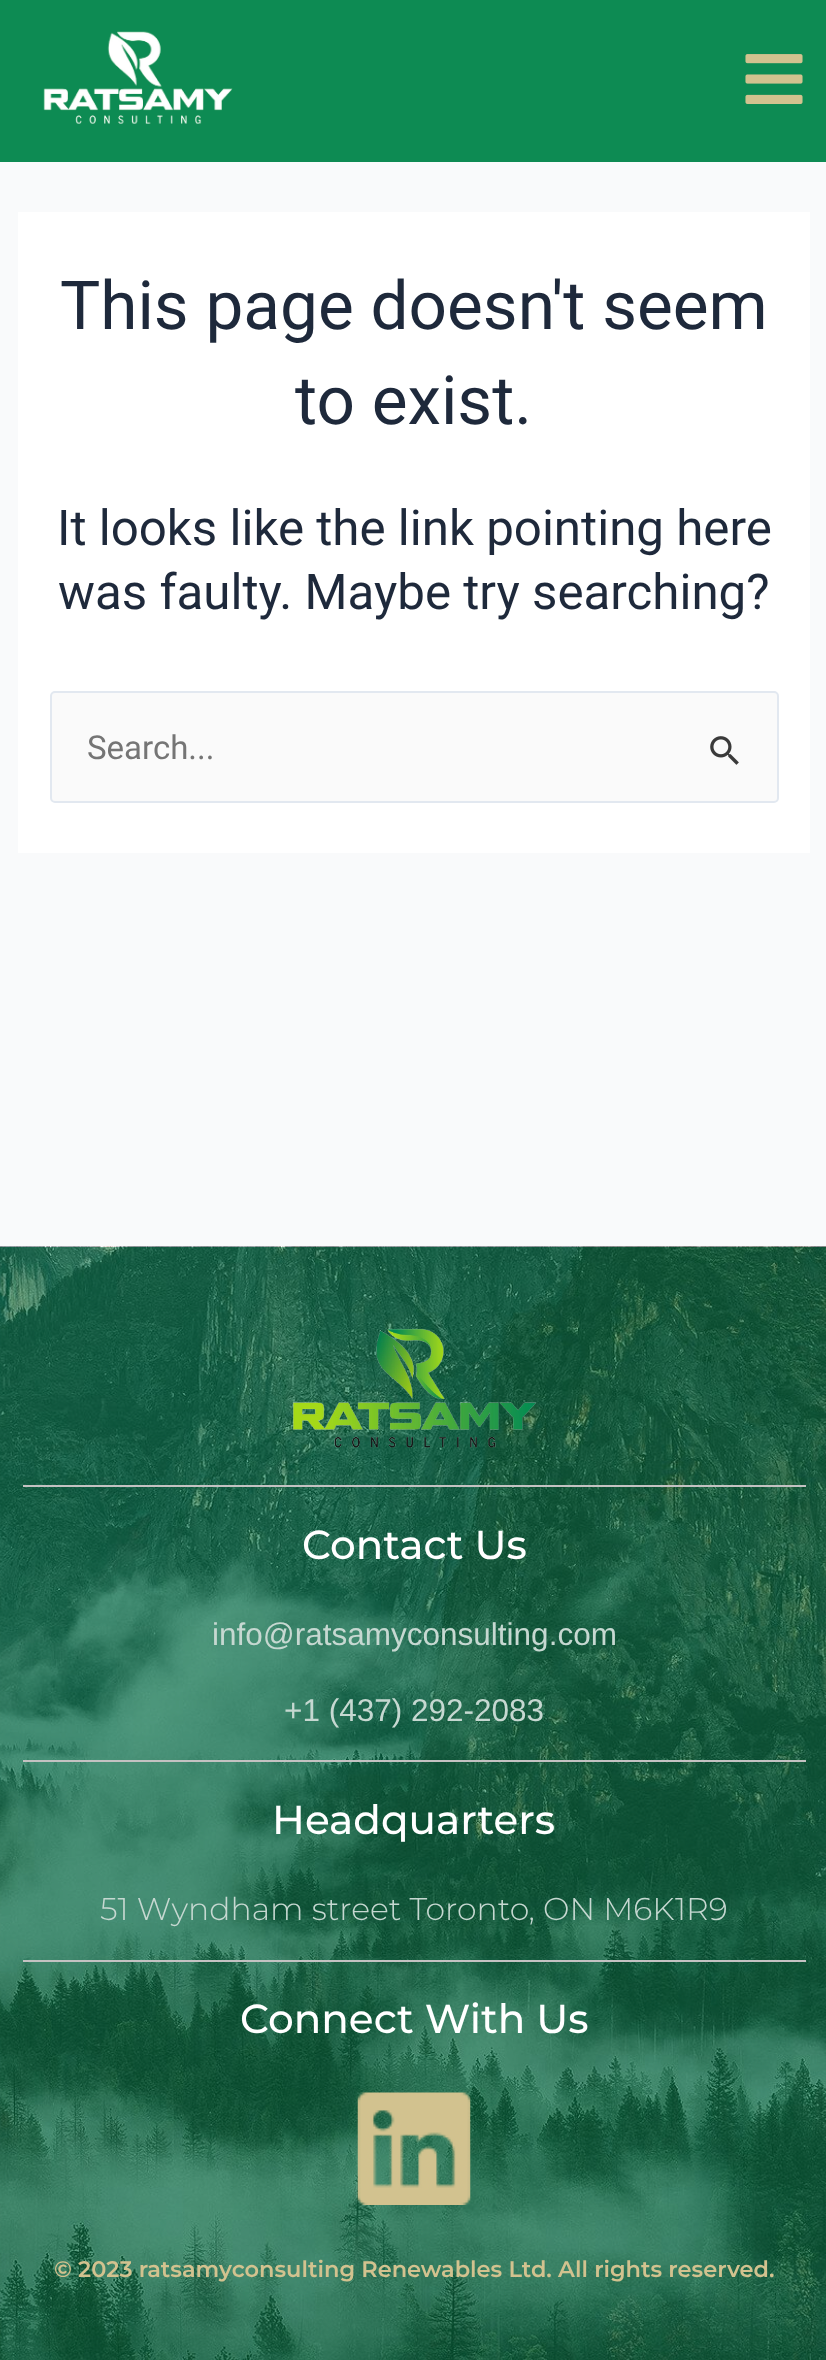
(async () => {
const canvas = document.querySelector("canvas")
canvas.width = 826
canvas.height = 2360
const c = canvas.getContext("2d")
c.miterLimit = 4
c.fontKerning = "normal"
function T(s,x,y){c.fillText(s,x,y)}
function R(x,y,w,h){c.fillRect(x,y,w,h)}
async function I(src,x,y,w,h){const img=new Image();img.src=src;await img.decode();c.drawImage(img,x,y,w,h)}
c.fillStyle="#f9fafb"
R(0,0,826,2360)
c.fillStyle="#0d8b53"
R(0,0,826,162)
await I("1.png",43,31,190,93)
await I("2.png",745,54,58,50)
c.fillStyle="#fff"
R(18,212,792,641)
c.font="67.5px Roboto"
c.fillStyle="#1e293b"
T("This page doesn't seem",60,329)
T("to exist.",295,424)
c.font="49.25px Roboto"
T("It looks like the link pointing here",57,545)
T("was faulty. Maybe try searching?",58,609)
c.fillStyle="#fafafa"
c.beginPath()
c.roundRect(51,692,727,110,4)
c.fill()
c.strokeStyle="#e2e8f0"
c.lineWidth=2
c.stroke()
c.font="33px Roboto"
c.fillStyle="#757575"
T("Search...",87,759)
await I("3.png",710,736,29,29)
await I("4.png",0,1246,826,1114)
await I("5.png",292,1328,245,120)
c.fillStyle="#c4c2c2"
R(23,1485,783,2)
c.font="500 40.5px Montserrat"
c.fillStyle="#fff"
T("Contact Us",302,1559)
c.font="31.5px Liberation Sans"
c.fillStyle="#c6d8d1"
T("info@ratsamyconsulting.com",212,1645)
T("+1 (437) 292-2083",284,1721)
c.fillStyle="#c4c2c2"
R(23,1760,783,2)
c.font="500 40.5px Montserrat"
c.fillStyle="#fff"
T("Headquarters",272,1834)
c.font="300 31.5px Montserrat"
c.fillStyle="#c6d8d1"
T("51 Wyndham street Toronto, ON M6K1R9",100,1920)
c.fillStyle="#c4c2c2"
R(23,1960,783,2)
c.font="500 40.5px Montserrat"
c.fillStyle="#fff"
T("Connect With Us",240,2033)
await I("6.png",357,2092,114,113)
c.font="600 22.5px Montserrat"
c.fillStyle="#d2c28f"
T("© 2023 ratsamyconsulting Renewables Ltd. All rights reserved.",54,2277)
})()
